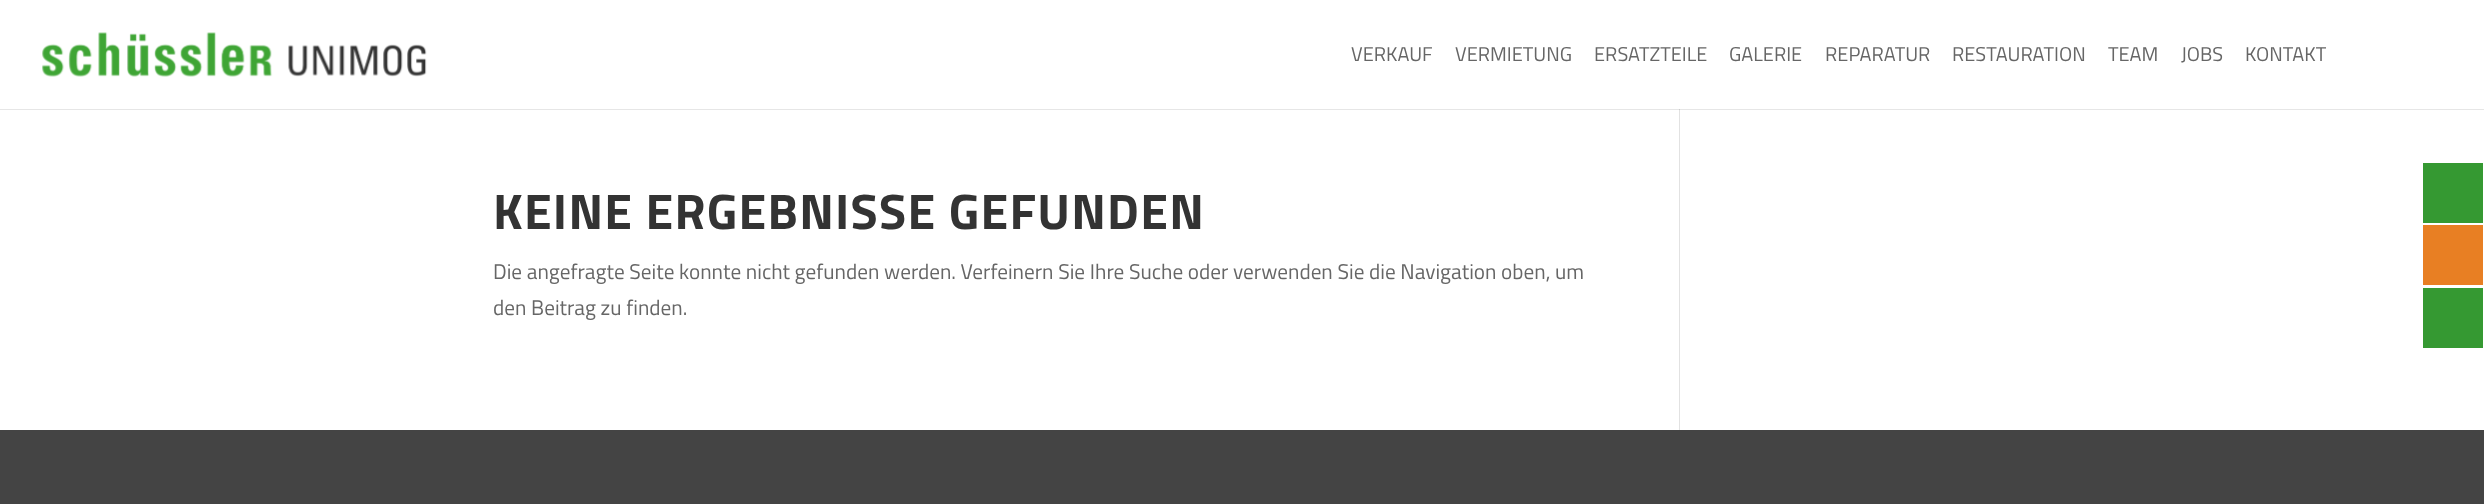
(async () => {
const canvas = document.querySelector("canvas")
canvas.width = 2484
canvas.height = 504
const c = canvas.getContext("2d")
c.miterLimit = 4
c.fontKerning = "normal"
function T(s,x,y){c.fillText(s,x,y)}
function R(x,y,w,h){c.fillRect(x,y,w,h)}
async function I(src,x,y,w,h){const img=new Image();img.src=src;await img.decode();c.drawImage(img,x,y,w,h)}
c.fillStyle="#fff"
R(0,0,2484,504)
c.fillStyle="#e6e6e6"
R(0,109,2484,1)
await I("1.png",42,32,385,45)
c.font="20px Titillium Web"
c.fillStyle="#666"
T("VERKAUF",1351,61)
T("VERMIETUNG",1455,61)
T("ERSATZTEILE",1594,61)
T("GALERIE",1729,61)
T("REPARATUR",1825,61)
T("RESTAURATION",1952,61)
T("TEAM",2108,61)
T("JOBS",2181,61)
T("KONTAKT",2245,61)
c.letterSpacing="1.25px"
c.font="bold 50px Titillium Web"
c.fillStyle="#333"
T("KEINE ERGEBNISSE GEFUNDEN",493,229)
c.letterSpacing="0px"
c.font="21.25px Titillium Web"
c.fillStyle="#666"
T("Die angefragte Seite konnte nicht gefunden werden. Verfeinern Sie Ihre Suche oder verwenden Sie die Navigation oben, um",493,279)
T("den Beitrag zu finden.",493,315)
c.fillStyle="#e2e2e2"
R(1679,109,1,321)
c.fillStyle="#cbcbcb"
R(1679,109,1,1)
c.fillStyle="#444"
R(0,430,2484,74)
c.fillStyle="#359932"
R(2423,163,60,60)
c.fillStyle="#e87f23"
R(2423,225,60,60)
c.fillStyle="#359932"
R(2423,288,60,60)
})()
